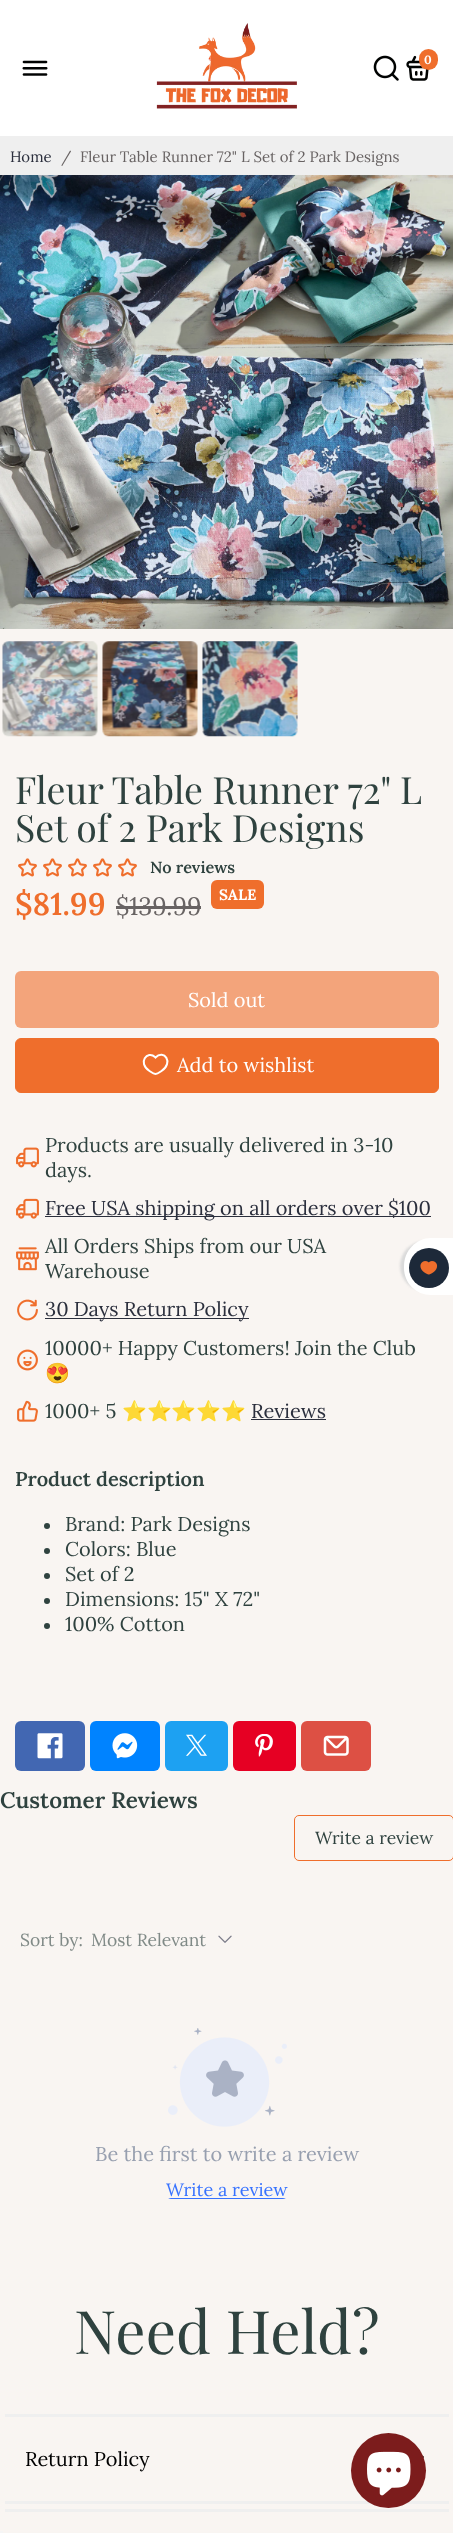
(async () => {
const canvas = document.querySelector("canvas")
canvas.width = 453
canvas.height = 2533
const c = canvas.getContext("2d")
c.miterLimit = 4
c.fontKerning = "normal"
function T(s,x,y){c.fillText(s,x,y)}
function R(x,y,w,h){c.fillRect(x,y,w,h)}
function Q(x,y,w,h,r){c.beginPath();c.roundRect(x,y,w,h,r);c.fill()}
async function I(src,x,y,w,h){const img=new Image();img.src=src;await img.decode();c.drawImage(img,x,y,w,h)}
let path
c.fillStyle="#f9f5f2"
R(0,0,453,2533)
c.fillStyle="#fff"
R(0,0,453,136)
await I("1.png",22,60,26,16)
await I("2.png",156,23,141,86)
await I("3.png",373,55,26,26)
await I("4.png",406,55,23,26)
c.fillStyle="#ef6e2c"
Q(419,49,19,21,9.5)
c.font="bold 12px Lora"
c.fillStyle="#fff"
T("0",424,64)
c.fillStyle="#efefef"
R(0,136,453,39)
c.font="15px Lora"
c.fillStyle="#2b2f3d"
T("Home",10,162)
c.fillStyle="#686363"
T("/",61,162)
T("Fleur Table Runner 72\" L Set of 2 Park Designs",80,162)
await I("5.png",0,175,453,454)
await I("6.png",2,641,96,96)
await I("7.png",102,641,96,96)
await I("8.png",202,641,96,96)
c.font="37.5px Playfair Display"
c.fillStyle="#2f423f"
T("Fleur Table Runner 72\" L",15,804)
T("Set of 2 Park Designs",15,842)
await I("9.png",18,858,19,19)
await I("9.png",43,858,19,19)
await I("9.png",68,858,19,19)
await I("9.png",93,858,19,19)
await I("9.png",118,858,19,19)
c.font="600 16.25px Lora"
T("No reviews",150,873)
c.font="600 31px Lora"
c.fillStyle="#ef6e2c"
T("$81.99",15,915)
c.font="25px Lora"
c.fillStyle="#686363"
T("$139.99",116,915)
R(116,906,85,3)
c.fillStyle="#ef6e2c"
Q(211,880,53,29,6)
c.font="bold 15px Lora"
c.fillStyle="#fff"
T("SALE",219,900)
c.fillStyle="#f3a47b"
Q(15,971,424,57,6)
c.font="20px Lora"
c.fillStyle="#fff"
T("Sold out",188,1007)
c.fillStyle="#ef6e2c"
c.beginPath()
c.roundRect(15.5,1038.5,423,54,5.5)
c.fill()
c.strokeStyle="#ef6e2c"
c.stroke()
path = new Path2D("M155 1057l.5 .5c8.5-8.5 18.5 5 6 13.5c-1.5 1-4 3-6 3c-2 0-4.5-2-6-3c-12.5-8.5-2-21 5.5-14z")
c.strokeStyle="#fff"
c.lineWidth=2
c.stroke(path)
c.fillStyle="#fff"
T("Add to wishlist",177,1072)
await I("10.png",16,1147,23,21)
c.fillStyle="#2f423f"
T("Products are usually delivered in 3-10",45,1152)
T("days.",45,1177)
await I("11.png",16,1198,23,21)
c.fillStyle="#2b2f3d"
R(45,1216,386,1)
T("Free USA shipping on all orders over $100",45,1215)
await I("12.png",16,1247,23,24)
c.fillStyle="#2f423f"
T("All Orders Ships from our USA",45,1253)
T("Warehouse",45,1278)
await I("13.png",17,1299,21,22)
c.fillStyle="#2b2f3d"
R(45,1318,204,1)
T("30 Days Return Policy",45,1316)
await I("14.png",17,1349,21,22)
c.fillStyle="#2f423f"
T("10000+ Happy Customers! Join the Club",45,1355)
c.font="20px Noto Color Emoji"
T("😍",45,1380)
await I("15.png",17,1400,21,22)
c.font="20px Lora"
T("1000+ 5",45,1418)
c.font="20px Noto Color Emoji"
T("⭐⭐⭐⭐⭐",122,1418)
c.font="20px Lora"
c.fillStyle="#2b2f3d"
T("Reviews",251,1418)
R(251,1419,75,1)
c.font="600 20px Lora"
c.fillStyle="#2f423f"
T("Product description",15,1486)
c.beginPath()
c.arc(47,1526,3,0,7)
c.fill()
c.font="20px Lora"
T("Brand: Park Designs",65,1531)
c.beginPath()
c.arc(47,1551,3,0,7)
c.fill()
T("Colors: Blue",65,1556)
c.beginPath()
c.arc(47,1576,3,0,7)
c.fill()
T("Set of 2",65,1581)
c.beginPath()
c.arc(47,1601,3,0,7)
c.fill()
T("Dimensions: 15\" X 72\"",65,1606)
c.beginPath()
c.arc(47,1626,3,0,7)
c.fill()
T("100% Cotton",65,1631)
c.fillStyle="#4267b2"
Q(15,1721,70,50,6)
await I("16.png",37,1733,26,26)
c.fillStyle="#0083ff"
Q(90,1721,70,50,6)
await I("17.png",112,1733,26,26)
c.fillStyle="#1da1f2"
Q(165,1721,63,50,6)
await I("18.png",186,1734,21,22)
c.fillStyle="#e60023"
Q(233,1721,63,50,6)
await I("19.png",255,1734,18,23)
c.fillStyle="#dd5044"
Q(301,1721,70,50,6)
await I("20.png",323,1735,26,21)
c.font="600 22.5px Lora"
c.fillStyle="#2f423f"
T("Customer Reviews",0,1808)
c.beginPath()
c.roundRect(294.5,1815.5,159,45,4.5)
c.strokeStyle="#ef6e2c"
c.lineWidth=1
c.stroke()
c.font="17.5px Lora"
T("Write a review",315,1844)
c.fillStyle="#808a87"
T("Sort by:",20,1946)
T("Most Relevant",91,1946)
await I("21.png",218,1935,14,8)
await I("22.png",168,2028,119,99)
await I("23.png",206,2060,38,37)
c.font="20px Lora"
c.fillStyle="#979faf"
T("Be the first to write a review",95,2161)
c.font="18px Lora"
c.fillStyle="#3772ff"
T("Write a review",166,2196)
c.save()
c.beginPath()
c.roundRect(166,2181,122,18,5)
c.clip()
R(166,2198,122,1)
c.restore()
c.font="60px Playfair Display"
c.fillStyle="#2f423f"
T("Need Held?",74,2354)
c.fillStyle="#efefef"
R(5,2414,444,3)
R(5,2501,444,3)
c.font="20px Lora"
c.fillStyle="#000"
T("Return Policy",25,2466)
await I("24.png",422,2455,2,3)
c.fillStyle="#efefef"
R(5,2509,444,3)
c.fillStyle="#dadada"
c.filter="blur(1px)"
c.beginPath()
c.roundRect(400,1241,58,50,28)
c.fill()
c.filter="none"
c.fillStyle="#fff"
path = new Path2D("M404 1268v-2c0-15 12-28 27-28h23v57h-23c-15 0-27-12-27-27z")
c.fill(path)
c.fillStyle="#1d2939"
c.beginPath()
c.arc(429,1268,20,0,7)
c.fill()
await I("25.png",420,1261,18,14)
c.fillStyle="#7c1c1c"
c.beginPath()
c.arc(388.5,2470.5,37.5,0,7)
c.fill()
await I("26.png",367,2451,44,45)
c.fillStyle="#f5f5f5"
R(0,2531,3,2)
})()
